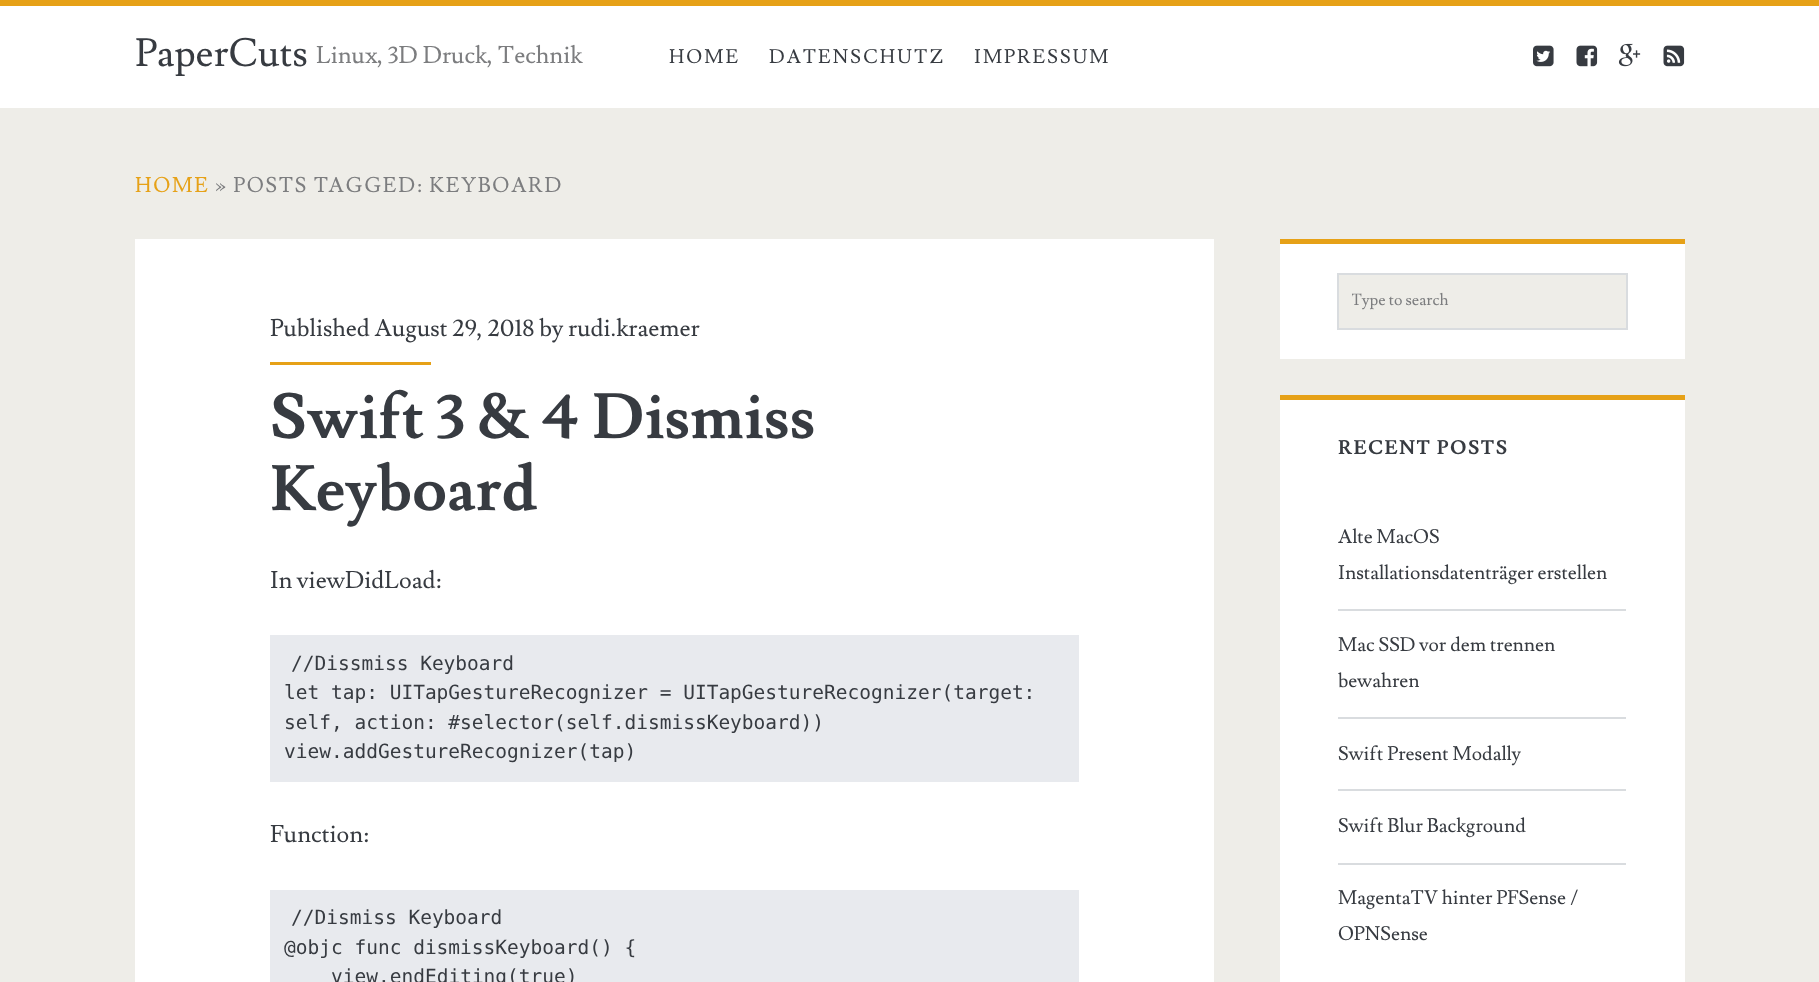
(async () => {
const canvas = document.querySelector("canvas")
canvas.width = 1819
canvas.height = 982
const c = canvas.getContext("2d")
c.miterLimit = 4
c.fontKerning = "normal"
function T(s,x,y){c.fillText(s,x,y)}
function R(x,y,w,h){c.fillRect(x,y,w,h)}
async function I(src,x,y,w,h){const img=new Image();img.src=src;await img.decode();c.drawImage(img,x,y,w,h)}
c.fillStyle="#eeede8"
R(0,0,1819,982)
c.fillStyle="#fff"
R(0,6,1819,102)
c.fillStyle="#e6a117"
R(0,0,1819,6)
c.font="39px Lusitana"
c.fillStyle="#373b41"
T("PaperCuts",135,66)
c.font="24px Lusitana"
c.fillStyle="#7c7d7f"
T("Linux, 3D Druck, Technik",316,63)
c.letterSpacing="2px"
c.font="19.5px Lusitana"
c.fillStyle="#373b41"
T("HOME",669,63)
T("DATENSCHUTZ",769,63)
T("IMPRESSUM",974,63)
await I("1.png",1533,45,21,22)
await I("2.png",1576,45,22,22)
await I("3.png",1618,43,23,24)
await I("4.png",1663,45,22,22)
c.letterSpacing="1.7px"
c.font="21px Lusitana"
c.fillStyle="#e6a117"
T("HOME",135,192)
c.fillStyle="#7c7d7f"
T("» POSTS TAGGED: KEYBOARD",215,192)
c.fillStyle="#fff"
R(135,239,1079,743)
c.letterSpacing="0px"
c.font="24px Lusitana"
c.fillStyle="#373b41"
T("Published August 29, 2018 by rudi.kraemer",270,336)
c.fillStyle="#e6a117"
R(270,362,161,3)
c.font="bold 63px Lusitana"
c.fillStyle="#373b41"
T("Swift 3 & 4 Dismiss",270,438)
T("Keyboard",270,510)
c.font="24px Lusitana"
T("In viewDidLoad:",270,588)
c.fillStyle="#e8eaee"
R(270,635,809,147)
c.font="19.5px DejaVu Sans Mono"
c.fillStyle="#373b41"
T("//Dissmiss Keyboard",291,670)
T("let tap: UITapGestureRecognizer = UITapGestureRecognizer(target:",284,699)
T("self, action: #selector(self.dismissKeyboard))",284,729)
T("view.addGestureRecognizer(tap)",284,758)
c.font="24px Lusitana"
T("Function:",270,842)
c.fillStyle="#e8eaee"
R(270,890,809,92)
c.font="19.5px DejaVu Sans Mono"
c.fillStyle="#373b41"
T("//Dismiss Keyboard",291,924)
T("@objc func dismissKeyboard() {",284,954)
T("view.endEditing(true)",331,983)
c.fillStyle="#fff"
R(1280,244,405,115)
c.fillStyle="#e6a117"
R(1280,239,405,5)
c.fillStyle="#eeede8"
R(1339,275,287,53)
c.strokeStyle="#d9dcdf"
c.lineWidth=2
c.strokeRect(1338,274,289,55)
c.save()
c.beginPath()
c.rect(1352,291,244,21)
c.clip()
c.font="16px Lusitana"
c.fillStyle="#7c7d7f"
T("Type to search",1351,305)
c.restore()
c.fillStyle="#fff"
R(1280,400,405,582)
c.fillStyle="#e6a117"
R(1280,395,405,5)
c.letterSpacing="1.5px"
c.font="bold 19.5px Lusitana"
c.fillStyle="#373b41"
T("RECENT POSTS",1338,454)
c.fillStyle="#d9dcdf"
R(1338,609,288,2)
c.letterSpacing="0px"
c.font="19.5px Lusitana"
c.fillStyle="#373b41"
T("Alte MacOS",1338,543)
T("Installationsdatenträger erstellen",1338,579)
c.fillStyle="#d9dcdf"
R(1338,717,288,2)
c.fillStyle="#373b41"
T("Mac SSD vor dem trennen",1338,651)
T("bewahren",1338,687)
c.fillStyle="#d9dcdf"
R(1338,789,288,2)
c.fillStyle="#373b41"
T("Swift Present Modally",1338,760)
c.fillStyle="#d9dcdf"
R(1338,863,288,2)
c.fillStyle="#373b41"
T("Swift Blur Background",1338,832)
T("MagentaTV hinter PFSense /",1338,904)
T("OPNSense",1338,940)
})()
